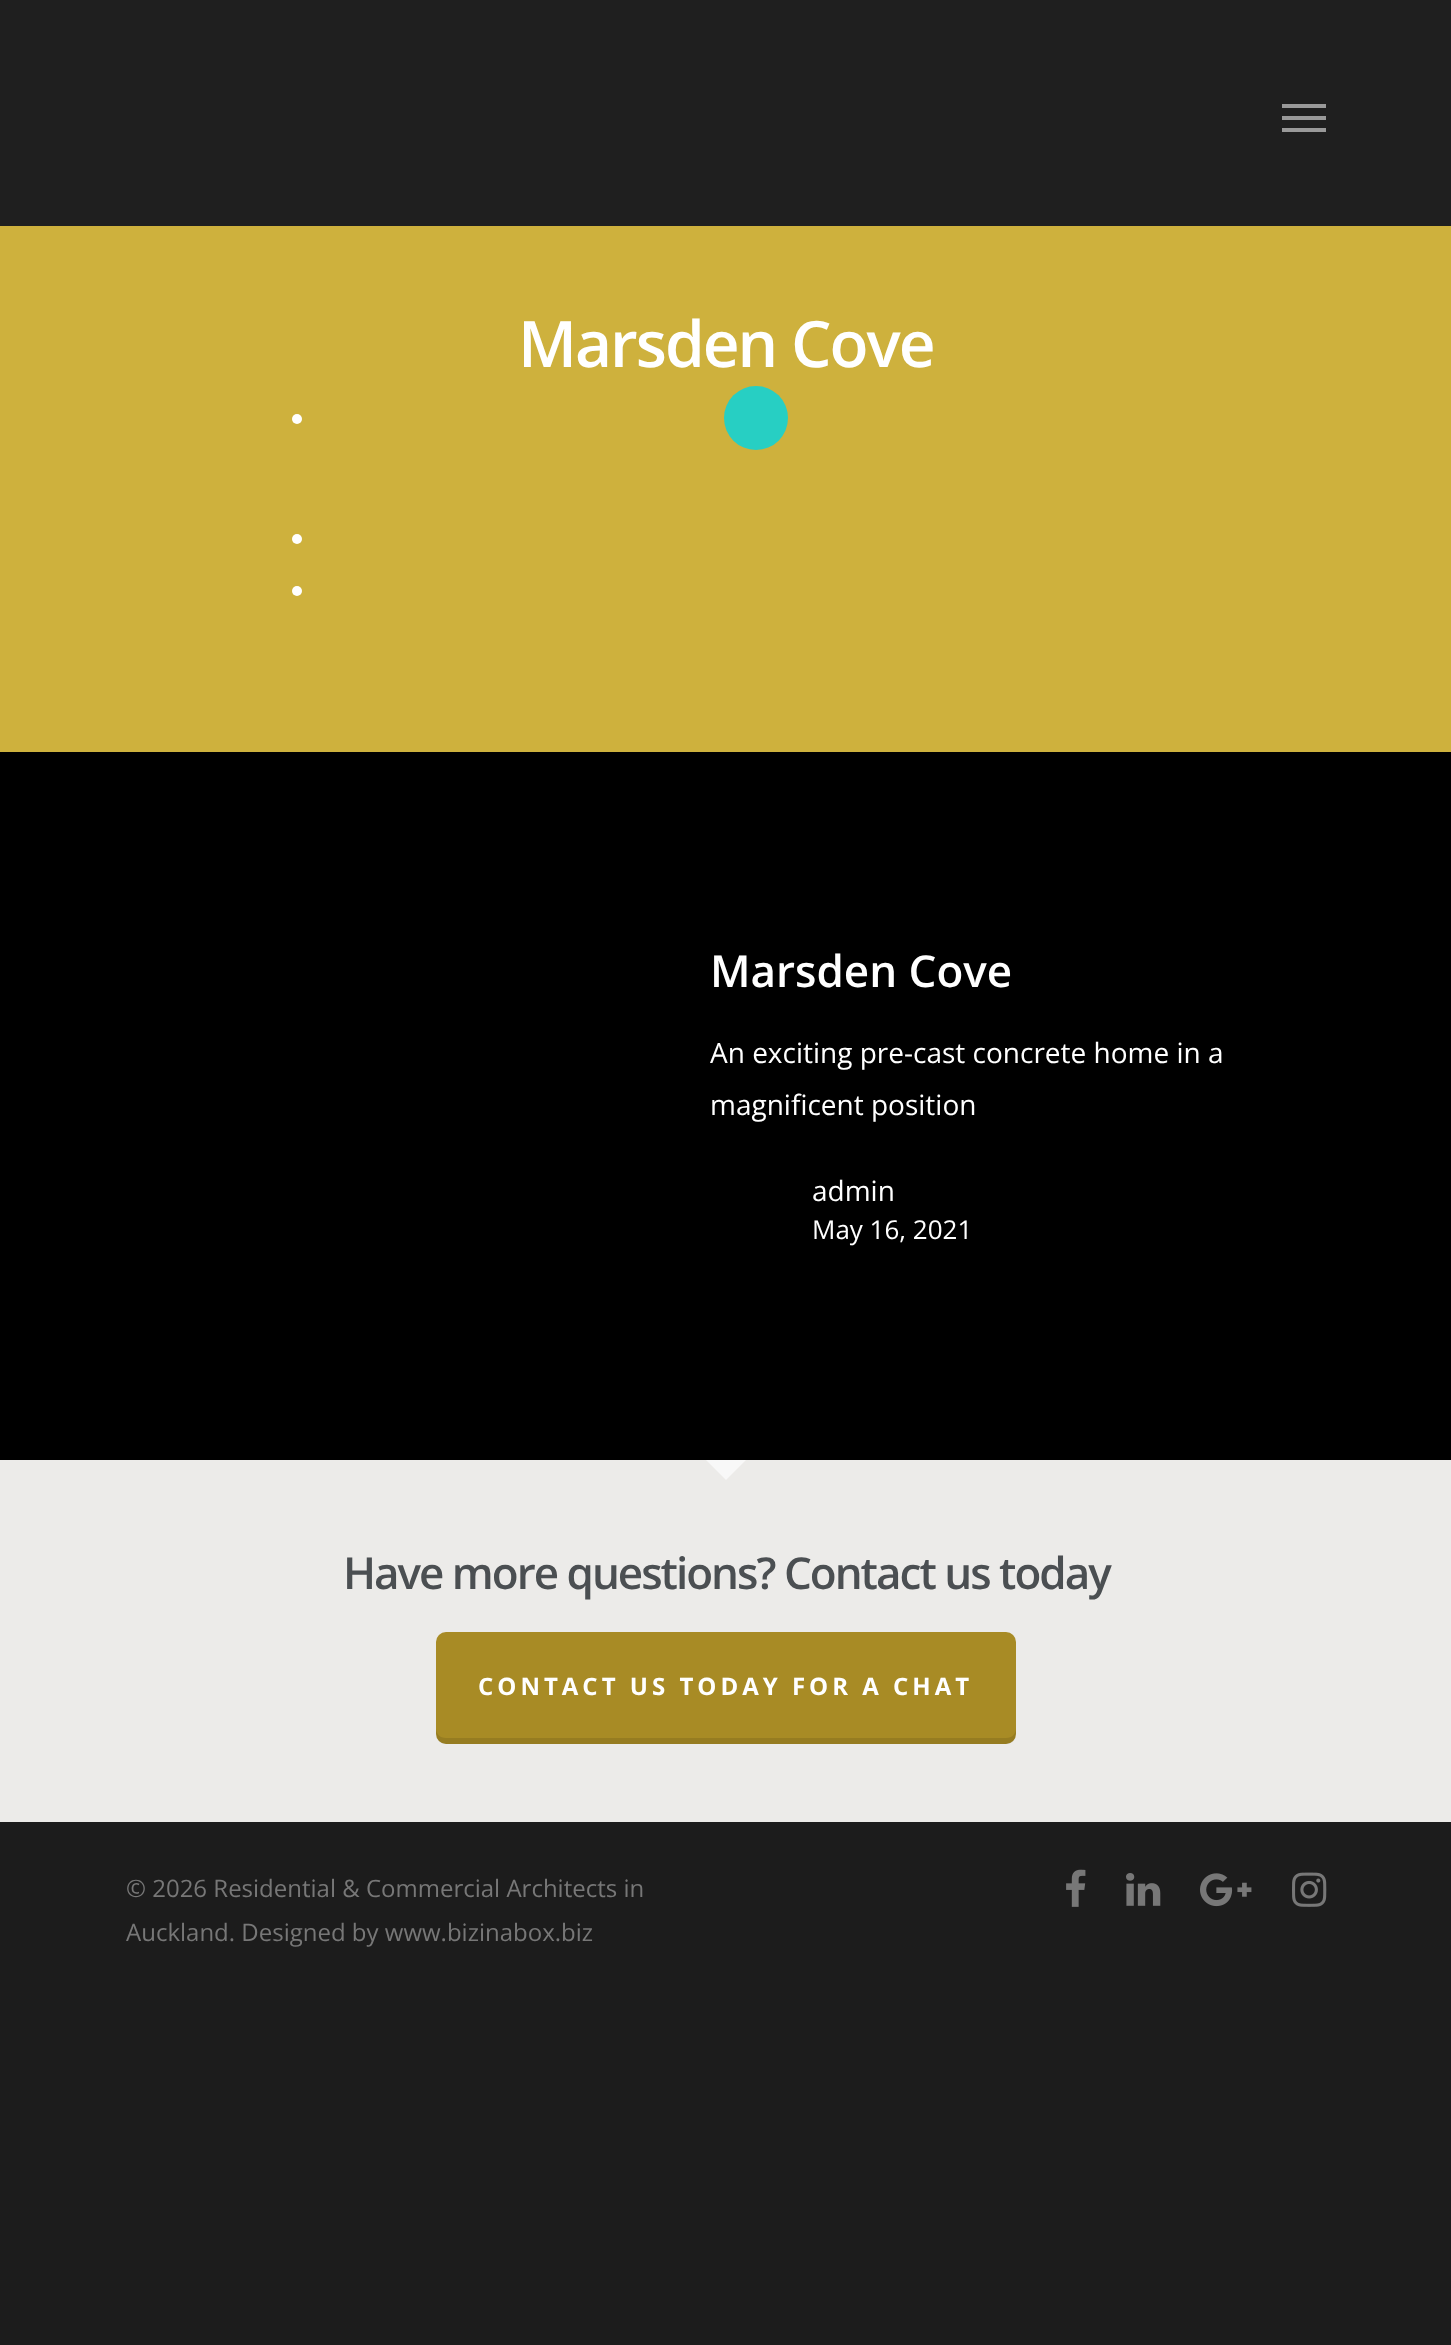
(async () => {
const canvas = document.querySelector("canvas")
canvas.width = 1451
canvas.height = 2345
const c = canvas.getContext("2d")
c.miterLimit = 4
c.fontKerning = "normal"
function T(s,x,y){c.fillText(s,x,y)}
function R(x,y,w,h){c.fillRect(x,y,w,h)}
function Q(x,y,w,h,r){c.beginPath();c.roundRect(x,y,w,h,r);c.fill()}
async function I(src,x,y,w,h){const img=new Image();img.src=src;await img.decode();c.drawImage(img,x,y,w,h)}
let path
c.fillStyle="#1c1c1c"
R(0,0,1451,2345)
c.fillStyle="#1f1f1f"
R(0,0,1451,226)
c.fillStyle="#999"
R(1282,104,44,4)
R(1282,128,44,4)
R(1282,116,44,4)
c.fillStyle="#ceb13d"
R(0,226,1451,526)
c.letterSpacing="-2px"
c.font="600 64px Open Sans"
c.fillStyle="#fff"
T("Marsden Cove",518,367)
c.beginPath()
c.arc(297,419,5,0,7)
c.fill()
c.fillStyle="#27cfc3"
c.beginPath()
c.arc(756,418,32,0,7)
c.fill()
c.fillStyle="#fff"
c.beginPath()
c.arc(297,539,5,0,7)
c.fill()
c.beginPath()
c.arc(297,591,5,0,7)
c.fill()
c.fillStyle="#000"
R(0,752,1451,708)
c.letterSpacing="0px"
c.font="600 44px Open Sans"
c.fillStyle="#fff"
T("Marsden Cove",710,987)
c.font="28px Open Sans"
T("An exciting pre-cast concrete home in a",710,1063)
T("magnificent position",710,1115)
T("admin",812,1201)
c.font="26px Open Sans"
T("May 16, 2021",812,1239)
c.fillStyle="#ecebe9"
R(0,1460,1451,362)
c.fillStyle="#f8f8f8"
path = new Path2D("M706 1460h40l-20 20z")
c.fill(path)
c.letterSpacing="-2px"
c.font="600 44px Open Sans"
c.fillStyle="#4b4f52"
T("Have more questions? Contact us today",343,1589)
c.fillStyle="#a88b25"
Q(436,1632,580,112,10)
c.fillStyle="#0000001a"
path = new Path2D("M436 1728c0 6 0 14 8 16h562c10 0 10-9 10-16c0 6-4 10-10 10h-560c-6 0-10-4-10-10z")
c.fill(path)
c.letterSpacing="4px"
c.font="bold 24px Open Sans"
c.fillStyle="#fff"
T("CONTACT US TODAY FOR A CHAT",478,1695)
c.letterSpacing="0px"
c.font="24px Open Sans"
c.fillStyle="#777"
T("© 2026 Residential & Commercial Architects in",126,1897)
T("Auckland. Designed by www.bizinabox.biz",126,1941)
await I("1.png",1066,1869,20,38)
await I("2.png",1126,1873,35,33)
await I("3.png",1200,1873,52,34)
await I("4.png",1292,1872,35,35)
})()
